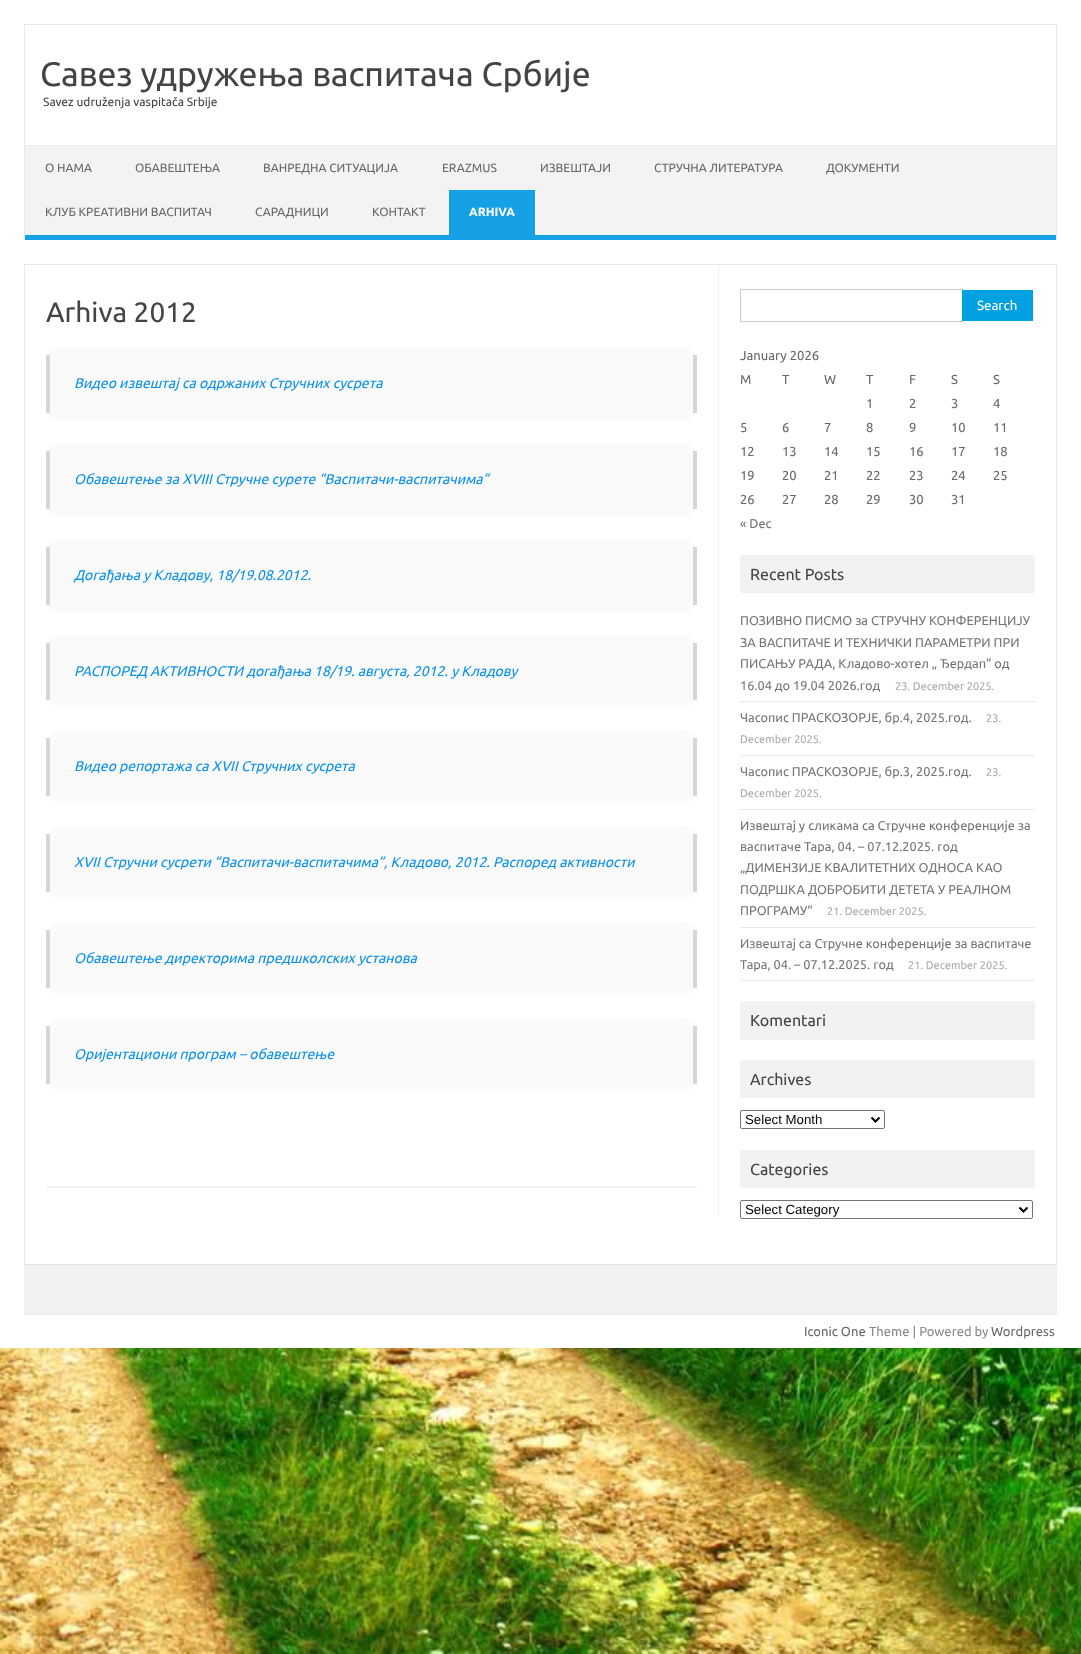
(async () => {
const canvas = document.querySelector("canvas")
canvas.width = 1081
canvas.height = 1654
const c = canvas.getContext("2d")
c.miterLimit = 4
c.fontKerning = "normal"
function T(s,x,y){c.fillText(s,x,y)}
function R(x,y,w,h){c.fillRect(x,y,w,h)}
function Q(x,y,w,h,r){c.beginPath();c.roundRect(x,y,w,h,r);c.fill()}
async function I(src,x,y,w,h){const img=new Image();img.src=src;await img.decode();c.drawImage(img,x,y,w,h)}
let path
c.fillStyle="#fff"
R(0,0,1081,1654)
await I("1.png",0,1348,1081,306)
c.fillStyle="#e9e9e9"
R(24,24,1033,1)
R(1056,24,1,216)
R(24,24,1,216)
c.font="34px Ubuntu"
c.fillStyle="#444"
T("Савез удружења васпитача Србије",40,86)
c.font="12px Ubuntu"
T("Savez udruženja vaspitača Srbije",43,106)
c.fillStyle="#f3f3f3"
R(25,146,1031,89)
c.fillStyle="#ededed"
R(25,145,1031,1)
c.fillStyle="#16a1e7"
R(25,235,1031,5)
c.fillStyle="#686868"
T("О НАМА",45,172)
T("ОБАВЕШТЕЊА",135,172)
T("ВАНРЕДНА СИТУАЦИЈА",263,172)
T("ERAZMUS",442,172)
T("ИЗВЕШТАЈИ",540,172)
T("СТРУЧНА ЛИТЕРАТУРА",654,172)
T("ДОКУМЕНТИ",826,172)
T("КЛУБ КРЕАТИВНИ ВАСПИТАЧ",45,216)
T("САРАДНИЦИ",255,216)
T("КОНТАКТ",372,216)
c.fillStyle="#16a1e7"
R(449,190,86,45)
c.font="bold 12px Ubuntu"
c.fillStyle="#fff"
T("ARHIVA",469,216)
c.strokeStyle="#e9e9e9"
c.strokeRect(24.5,264.5,1032,1000)
c.fillStyle="#f1f1f1"
R(718,265,1,951)
c.fillStyle="#f3f3f3"
R(46,1186,651,2)
c.font="28px Ubuntu"
c.fillStyle="#444"
T("Arhiva 2012",46,322)
c.fillStyle="#fafafa"
Q(46,348,651,72,14)
c.fillStyle="#d6d6d6"
R(693,355,4,58)
R(46,355,4,58)
c.font="italic 14px Ubuntu"
c.fillStyle="#0b91ea"
T("Видео извештај са одржаних Стручних сусрета",74,388)
c.fillStyle="#fafafa"
Q(46,444,651,72,14)
c.fillStyle="#d6d6d6"
R(693,451,4,58)
R(46,451,4,58)
c.fillStyle="#0b91ea"
T("Oбавештење за XVIII Стручне сурете “Васпитачи-васпитачима”",74,484)
c.fillStyle="#fafafa"
Q(46,540,651,72,14)
c.fillStyle="#d6d6d6"
R(693,547,4,58)
R(46,547,4,58)
c.fillStyle="#0b91ea"
T("Догађања у Кладову, 18/19.08.2012.",74,580)
c.fillStyle="#fafafa"
Q(46,636,651,71,14)
c.fillStyle="#d6d6d6"
R(693,643,4,57)
R(46,643,4,57)
c.fillStyle="#0b91ea"
T("РАСПОРЕД АКТИВНОСТИ догађања 18/19. августа, 2012. у Кладову",74,676)
c.fillStyle="#fafafa"
Q(46,731,651,72,14)
c.fillStyle="#d6d6d6"
R(693,738,4,58)
R(46,738,4,58)
c.fillStyle="#0b91ea"
T("Видео репортажа са XVII Стручних сусрета",74,771)
c.fillStyle="#fafafa"
Q(46,827,651,72,14)
c.fillStyle="#d6d6d6"
R(693,834,4,58)
R(46,834,4,58)
c.fillStyle="#0b91ea"
T("XVII Стручни сусрети “Васпитачи-васпитачима”, Кладово, 2012. Распоред активности",74,867)
c.fillStyle="#fafafa"
Q(46,923,651,72,14)
c.fillStyle="#d6d6d6"
R(693,930,4,58)
R(46,930,4,58)
c.fillStyle="#0b91ea"
T("Обавештење директорима предшколских установа",74,963)
c.fillStyle="#fafafa"
Q(46,1019,651,72,14)
c.fillStyle="#d6d6d6"
R(693,1026,4,58)
R(46,1026,4,58)
c.fillStyle="#0b91ea"
T("Oријентациони програм – обавештење",74,1059)
c.strokeStyle="#ccc"
c.strokeRect(740.5,289.5,222,32)
c.fillStyle="#00a1e0"
R(962,290,71,31)
c.font="13.25px Ubuntu"
c.fillStyle="#fff"
T("Search",977,310)
c.font="13px Ubuntu"
c.fillStyle="#686868"
T("January 2026",740,360)
T("M",740,384)
T("T",782,384)
T("W",824,384)
T("T",866,384)
T("F",909,384)
T("S",951,384)
T("S",993,384)
T("1",866,408)
T("2",909,408)
T("3",951,408)
T("4",993,408)
T("5",740,432)
T("6",782,432)
T("7",824,432)
T("8",866,432)
T("9",909,432)
T("10",951,432)
T("11",993,432)
T("12",740,456)
T("13",782,456)
T("14",824,456)
T("15",866,456)
T("16",909,456)
T("17",951,456)
T("18",993,456)
T("19",740,480)
T("20",782,480)
T("21",824,480)
T("22",866,480)
T("23",909,480)
T("24",951,480)
T("25",993,480)
T("26",740,504)
T("27",782,504)
T("28",824,504)
T("29",866,504)
T("30",909,504)
T("31",951,504)
c.font="12.75px Ubuntu"
c.fillStyle="#757575"
T("« Dec",740,528)
c.fillStyle="#f2f2f2"
R(740,555,295,38)
c.font="16px Ubuntu"
c.fillStyle="#444"
T("Recent Posts",750,580)
c.fillStyle="#e9e9e9"
R(740,701,295,1)
c.font="12.75px Ubuntu"
c.fillStyle="#757575"
T("ПОЗИВНО ПИСМО за СТРУЧНУ КОНФЕРЕНЦИЈУ",740,625)
T("ЗА ВАСПИТАЧЕ И ТЕХНИЧКИ ПАРАМЕТРИ ПРИ",740,647)
T("ПИСАЊУ РАДА, Кладово-хотел „ Ђердап“ од",740,668)
T("16.04 до 19.04 2026.год",740,690)
c.font="11px Ubuntu"
c.fillStyle="#aaa"
T("23. December 2025.",895,690)
c.fillStyle="#e9e9e9"
R(740,755,295,1)
c.font="12.75px Ubuntu"
c.fillStyle="#757575"
T("Часопис ПРАСКОЗОРЈЕ, бр.4, 2025.год.",740,722)
c.font="11px Ubuntu"
c.fillStyle="#aaa"
T("23.",986,722)
T("December 2025.",740,743)
c.fillStyle="#e9e9e9"
R(740,809,295,1)
c.font="12.75px Ubuntu"
c.fillStyle="#757575"
T("Часопис ПРАСКОЗОРЈЕ, бр.3, 2025.год.",740,776)
c.font="11px Ubuntu"
c.fillStyle="#aaa"
T("23.",986,776)
T("December 2025.",740,797)
c.fillStyle="#e9e9e9"
R(740,927,295,1)
c.font="12.75px Ubuntu"
c.fillStyle="#757575"
T("Извештај у сликама са Стручне конференције за",740,830)
T("васпитаче Тара, 04. – 07.12.2025. год",740,851)
T("„ДИМЕНЗИЈЕ КВАЛИТЕТНИХ ОДНОСА КАО",740,872)
T("ПОДРШКА ДОБРОБИТИ ДЕТЕТА У РЕАЛНОМ",740,894)
T("ПРОГРАМУ“",740,915)
c.font="11px Ubuntu"
c.fillStyle="#aaa"
T("21. December 2025.",827,915)
c.fillStyle="#e9e9e9"
R(740,980,295,1)
c.font="12.75px Ubuntu"
c.fillStyle="#757575"
T("Извештај са Стручне конференције за васпитаче",740,948)
T("Тара, 04. – 07.12.2025. год",740,969)
c.font="11px Ubuntu"
c.fillStyle="#aaa"
T("21. December 2025.",908,969)
c.fillStyle="#f2f2f2"
R(740,1001,295,39)
c.font="16px Ubuntu"
c.fillStyle="#444"
T("Komentari",750,1026)
c.fillStyle="#f2f2f2"
R(740,1060,295,38)
c.fillStyle="#444"
T("Archives",750,1085)
c.beginPath()
c.roundRect(740.5,1110.5,144,18,1.5)
c.strokeStyle="#767676"
c.stroke()
path = new Path2D("M871.5 1117.5l4 4l4-4")
c.strokeStyle="#000"
c.lineWidth=2
c.stroke(path)
c.font="13.25px Liberation Sans"
c.fillStyle="#000"
T("Select Month",745,1124)
c.fillStyle="#f2f2f2"
R(740,1150,295,38)
c.font="16px Ubuntu"
c.fillStyle="#444"
T("Categories",750,1175)
c.beginPath()
c.roundRect(740.5,1200.5,292,18,1.5)
c.strokeStyle="#767676"
c.lineWidth=1
c.stroke()
path = new Path2D("M1019.5 1207.5l4 4l4-4")
c.strokeStyle="#000"
c.lineWidth=2
c.stroke(path)
c.font="13.25px Liberation Sans"
c.fillStyle="#000"
T("Select Category",745,1214)
c.fillStyle="#f2f2f2"
R(24,1266,1033,48)
c.fillStyle="#ededed"
R(24,1265,1033,1)
c.fillStyle="#e9e9e9"
R(24,1314,1033,1)
c.font="13px Ubuntu"
c.fillStyle="#686868"
T("Iconic One",804,1336)
c.fillStyle="#888"
T("Theme | Powered by",869,1336)
c.fillStyle="#686868"
T("Wordpress",991,1336)
})()
